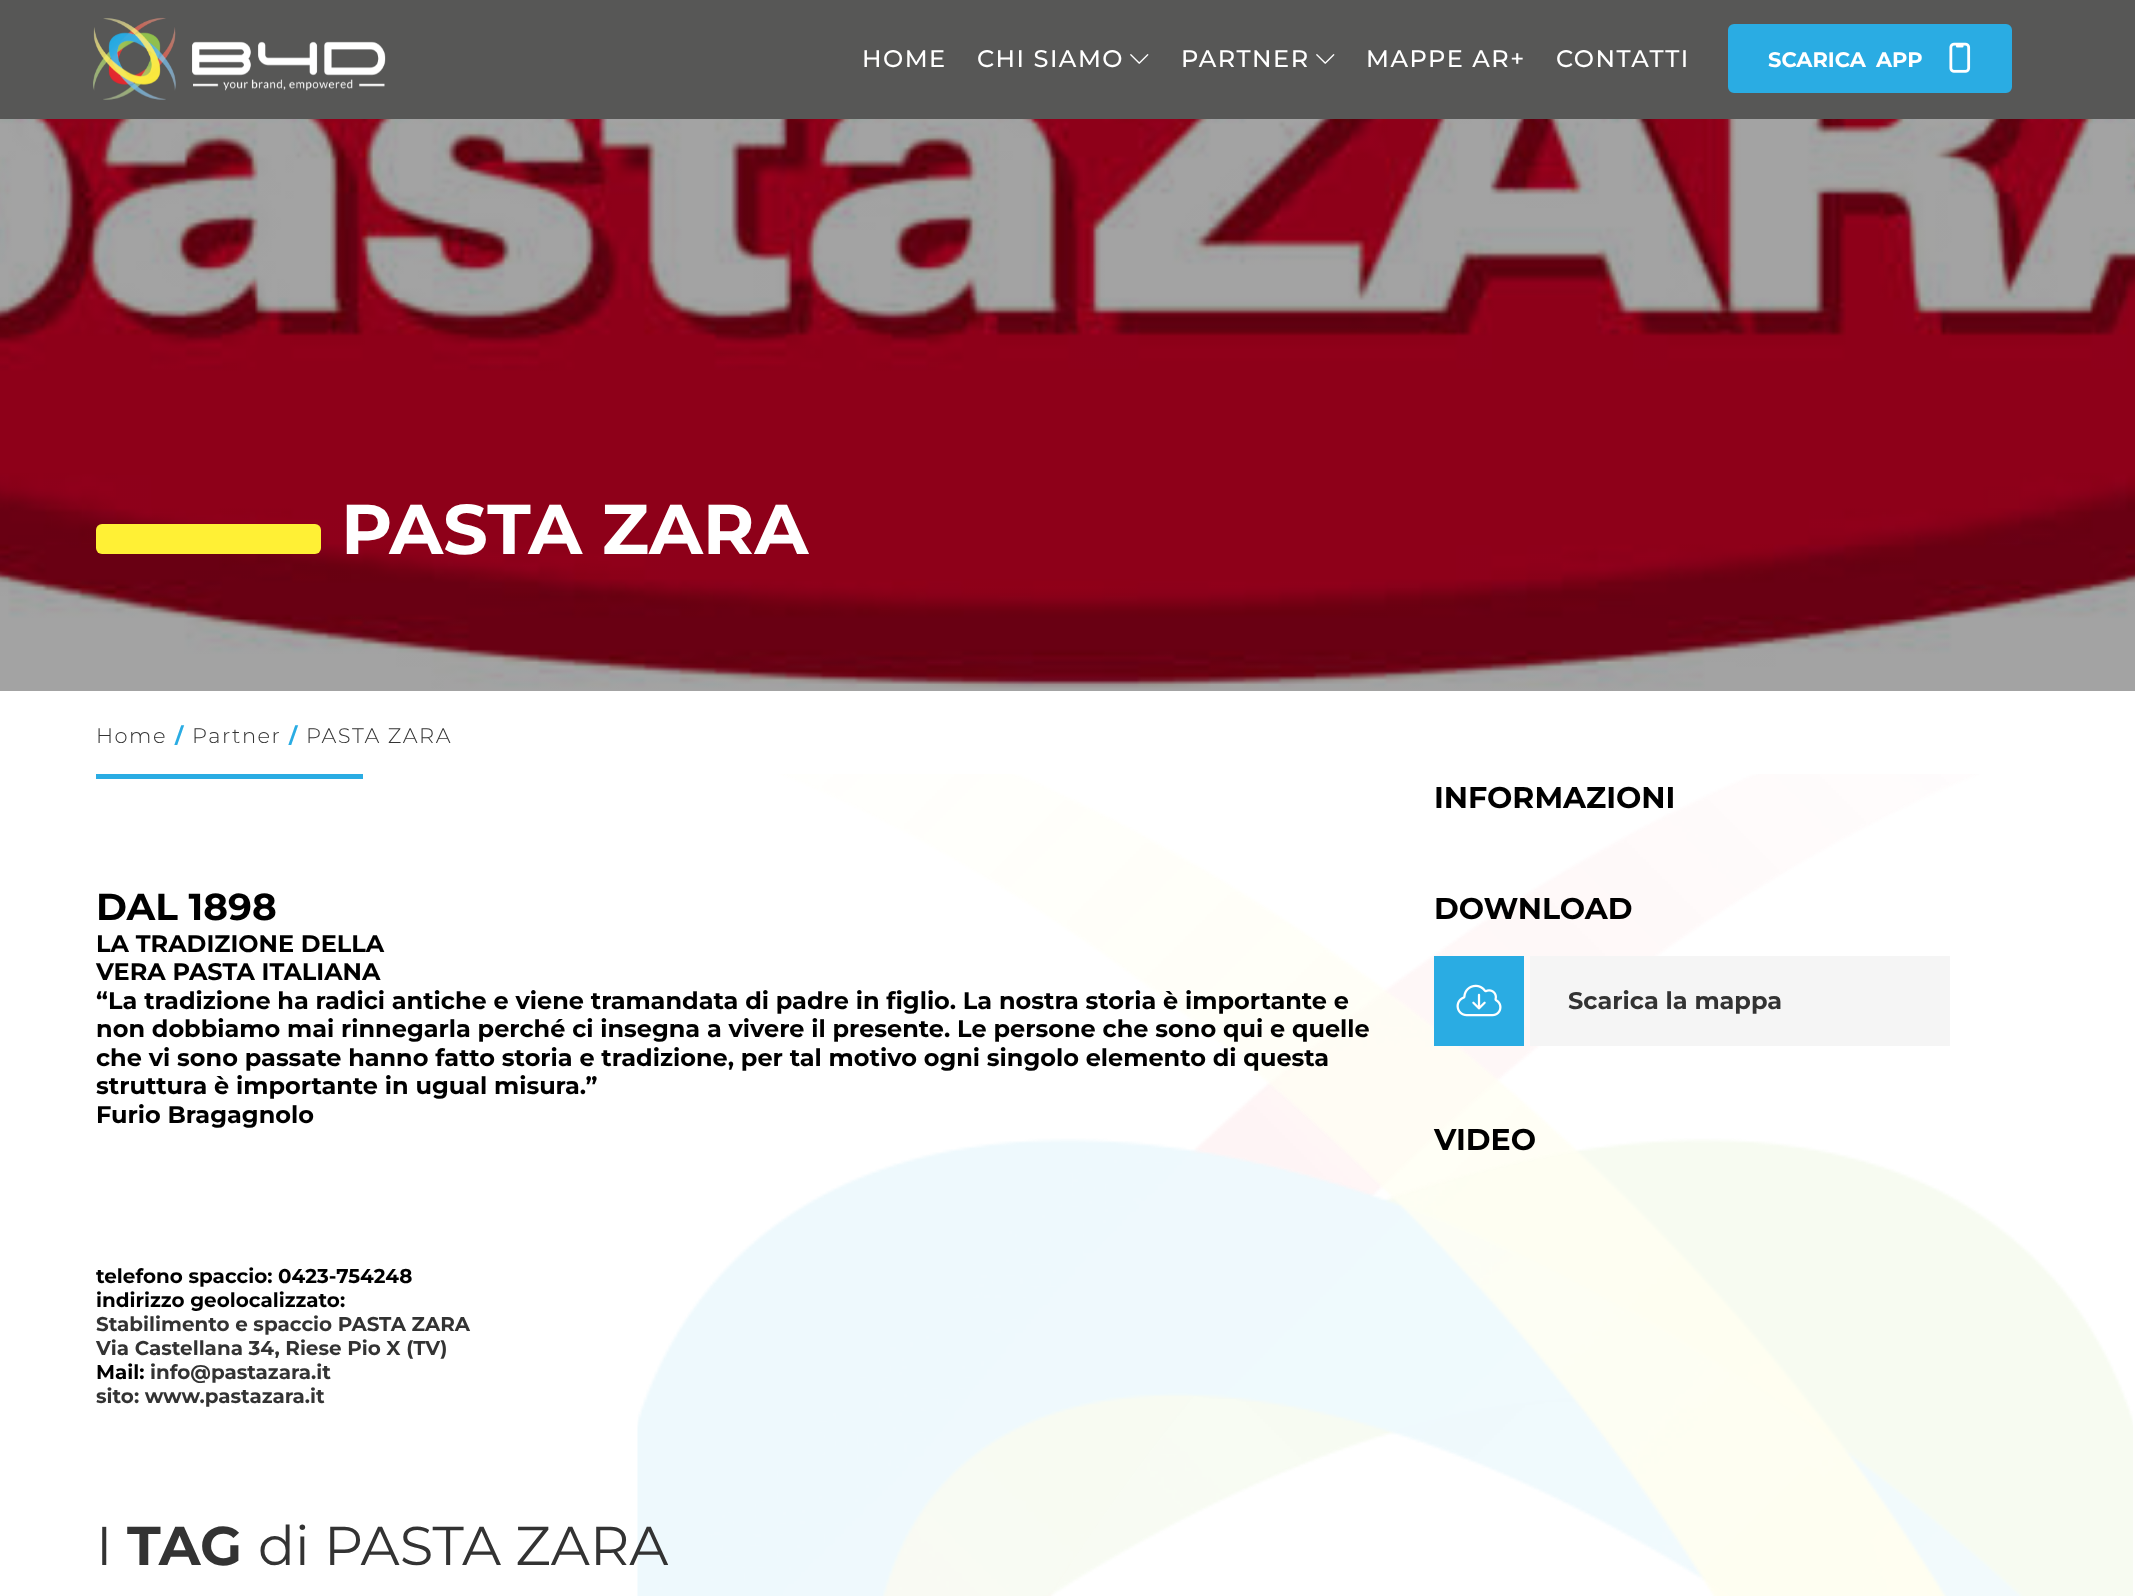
(async () => {
const canvas = document.querySelector("canvas")
canvas.width = 2135
canvas.height = 1596
const c = canvas.getContext("2d")
c.miterLimit = 4
c.fontKerning = "normal"
function T(s,x,y){c.fillText(s,x,y)}
function R(x,y,w,h){c.fillRect(x,y,w,h)}
function Q(x,y,w,h,r){c.beginPath();c.roundRect(x,y,w,h,r);c.fill()}
async function I(src,x,y,w,h){const img=new Image();img.src=src;await img.decode();c.drawImage(img,x,y,w,h)}
c.fillStyle="#fff"
R(0,0,2135,1596)
c.fillStyle="#575756"
R(0,0,2135,119)
await I("1.png",93,17,293,83)
c.letterSpacing="1.5px"
c.font="500 24px Montserrat"
c.fillStyle="#fff"
T("HOME",862,67)
T("CHI SIAMO",977,67)
await I("2.png",1130,54,19,10)
T("PARTNER",1181,67)
await I("2.png",1316,54,19,10)
T("MAPPE AR+",1366,67)
T("CONTATTI",1556,67)
c.fillStyle="#2aace3"
c.beginPath()
c.roundRect(1730.5,26.5,279,64,3.5)
c.fill()
c.strokeStyle="#2aace3"
c.lineWidth=5
c.stroke()
c.letterSpacing="0px"
c.font="bold 21px Montserrat"
c.fillStyle="#fff"
T("SCARICA",1768,67)
T("APP",1876,67)
await I("3.png",1949,42,22,31)
await I("4.png",0,119,2135,572)
c.fillStyle="#fff035"
Q(96,524,225,30,6)
c.font="bold 70.25px Montserrat"
c.fillStyle="#fff"
T("PASTA ZARA",341,554)
c.letterSpacing="1.5px"
c.font="300 21px Montserrat"
c.fillStyle="#333"
T("Home",96,743)
c.font="bold 21px Montserrat"
c.fillStyle="#2aace3"
T("/",175,743)
c.font="300 21px Montserrat"
c.fillStyle="#333"
T("Partner",192,743)
c.font="bold 21px Montserrat"
c.fillStyle="#2aace3"
T("/",289,743)
c.font="300 21px Montserrat"
c.fillStyle="#333"
T("PASTA ZARA",306,743)
c.fillStyle="#2aace3"
R(96,774,267,5)
await I("5.png",637,774,1496,822)
c.letterSpacing="0px"
c.font="bold 37.5px Montserrat"
c.fillStyle="#000"
T("DAL 1898",96,920)
c.font="bold 24px Montserrat"
T("LA TRADIZIONE DELLA",96,952)
T("VERA PASTA ITALIANA",96,980)
T("“La tradizione ha radici antiche e viene tramandata di padre in figlio. La nostra storia è importante e",96,1009)
T("non dobbiamo mai rinnegarla perché ci insegna a vivere il presente. Le persone che sono qui e quelle",96,1037)
T("che vi sono passate hanno fatto storia e tradizione, per tal motivo ogni singolo elemento di questa",96,1066)
T("struttura è importante in ugual misura.”",96,1094)
T("Furio Bragagnolo",96,1123)
c.font="bold 19.9px Montserrat"
T("telefono spaccio: 0423-754248",96,1283)
T("indirizzo geolocalizzato:",96,1307)
c.fillStyle="#333"
T("Stabilimento e spaccio PASTA ZARA",96,1331)
T("Via Castellana 34, Riese Pio X (TV)",96,1355)
c.fillStyle="#000"
T("Mail:",96,1379)
c.fillStyle="#333"
T("info@pastazara.it",150,1379)
T("sito: www.pastazara.it",96,1403)
c.font="54.5px Montserrat"
T("I",96,1565)
c.font="bold 54.5px Montserrat"
T("TAG",127,1565)
c.font="54.5px Montserrat"
T("di PASTA ZARA",258,1565)
c.font="bold 30px Montserrat"
c.fillStyle="#000"
T("INFORMAZIONI",1434,808)
T("DOWNLOAD",1434,919)
c.fillStyle="#2aace3"
R(1434,956,90,90)
await I("6.png",1456,984,46,33)
c.fillStyle="#f5f5f5"
R(1530,956,420,90)
c.font="bold 24px Montserrat"
c.fillStyle="#333"
T("Scarica la mappa",1568,1009)
c.font="bold 30px Montserrat"
c.fillStyle="#000"
T("VIDEO",1434,1150)
})()
